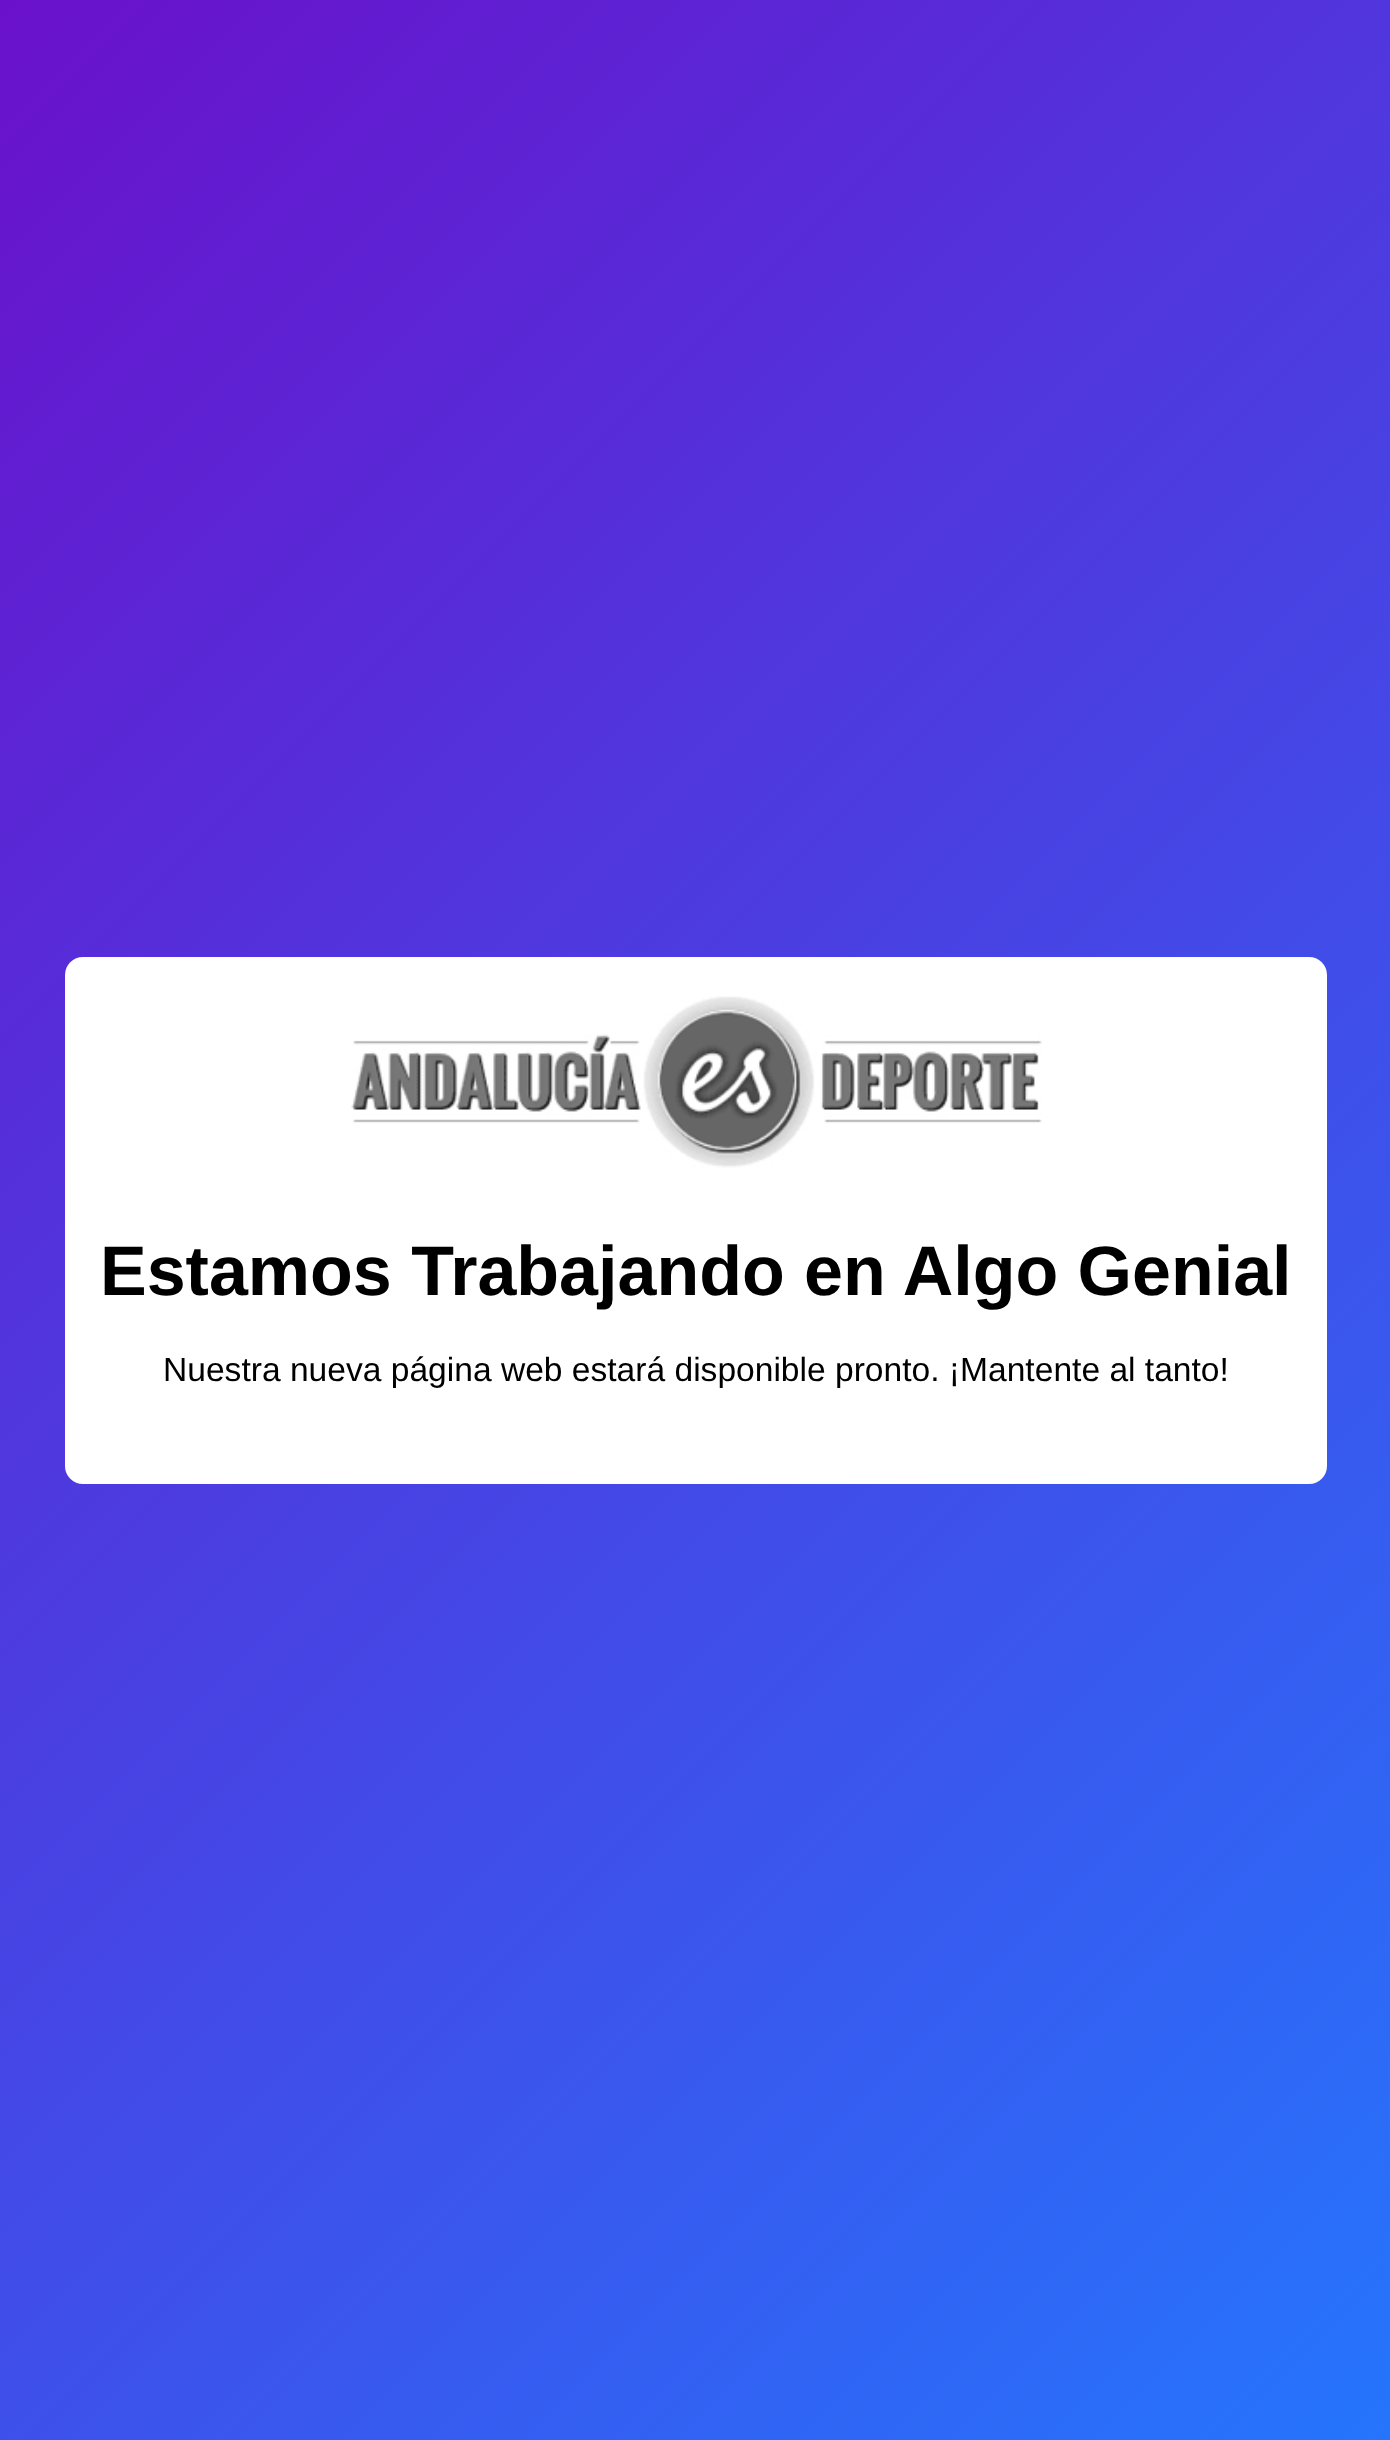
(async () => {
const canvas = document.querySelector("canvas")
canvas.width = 1390
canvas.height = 2440
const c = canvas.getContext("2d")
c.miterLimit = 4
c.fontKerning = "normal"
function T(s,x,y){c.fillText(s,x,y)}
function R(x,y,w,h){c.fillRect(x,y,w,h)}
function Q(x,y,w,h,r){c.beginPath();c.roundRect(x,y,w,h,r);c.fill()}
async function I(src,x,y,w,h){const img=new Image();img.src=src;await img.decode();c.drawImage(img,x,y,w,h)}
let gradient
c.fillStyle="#fff"
R(0,0,1390,2440)
gradient = c.createLinearGradient(-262,263,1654,2179)
gradient.addColorStop(0,"#6a11cb")
gradient.addColorStop(1,"#2575fc")
c.fillStyle = gradient
R(0,0,1390,2440)
c.fillStyle="#fff"
Q(65,957,1262,527,18)
await I("1.png",351,996,691,172)
c.font="bold 70px Liberation Sans"
c.fillStyle="#000"
T("Estamos Trabajando en Algo Genial",100,1295)
c.font="33.6px Liberation Sans"
T("Nuestra nueva página web estará disponible pronto. ¡Mantente al tanto!",163,1381)
})()
